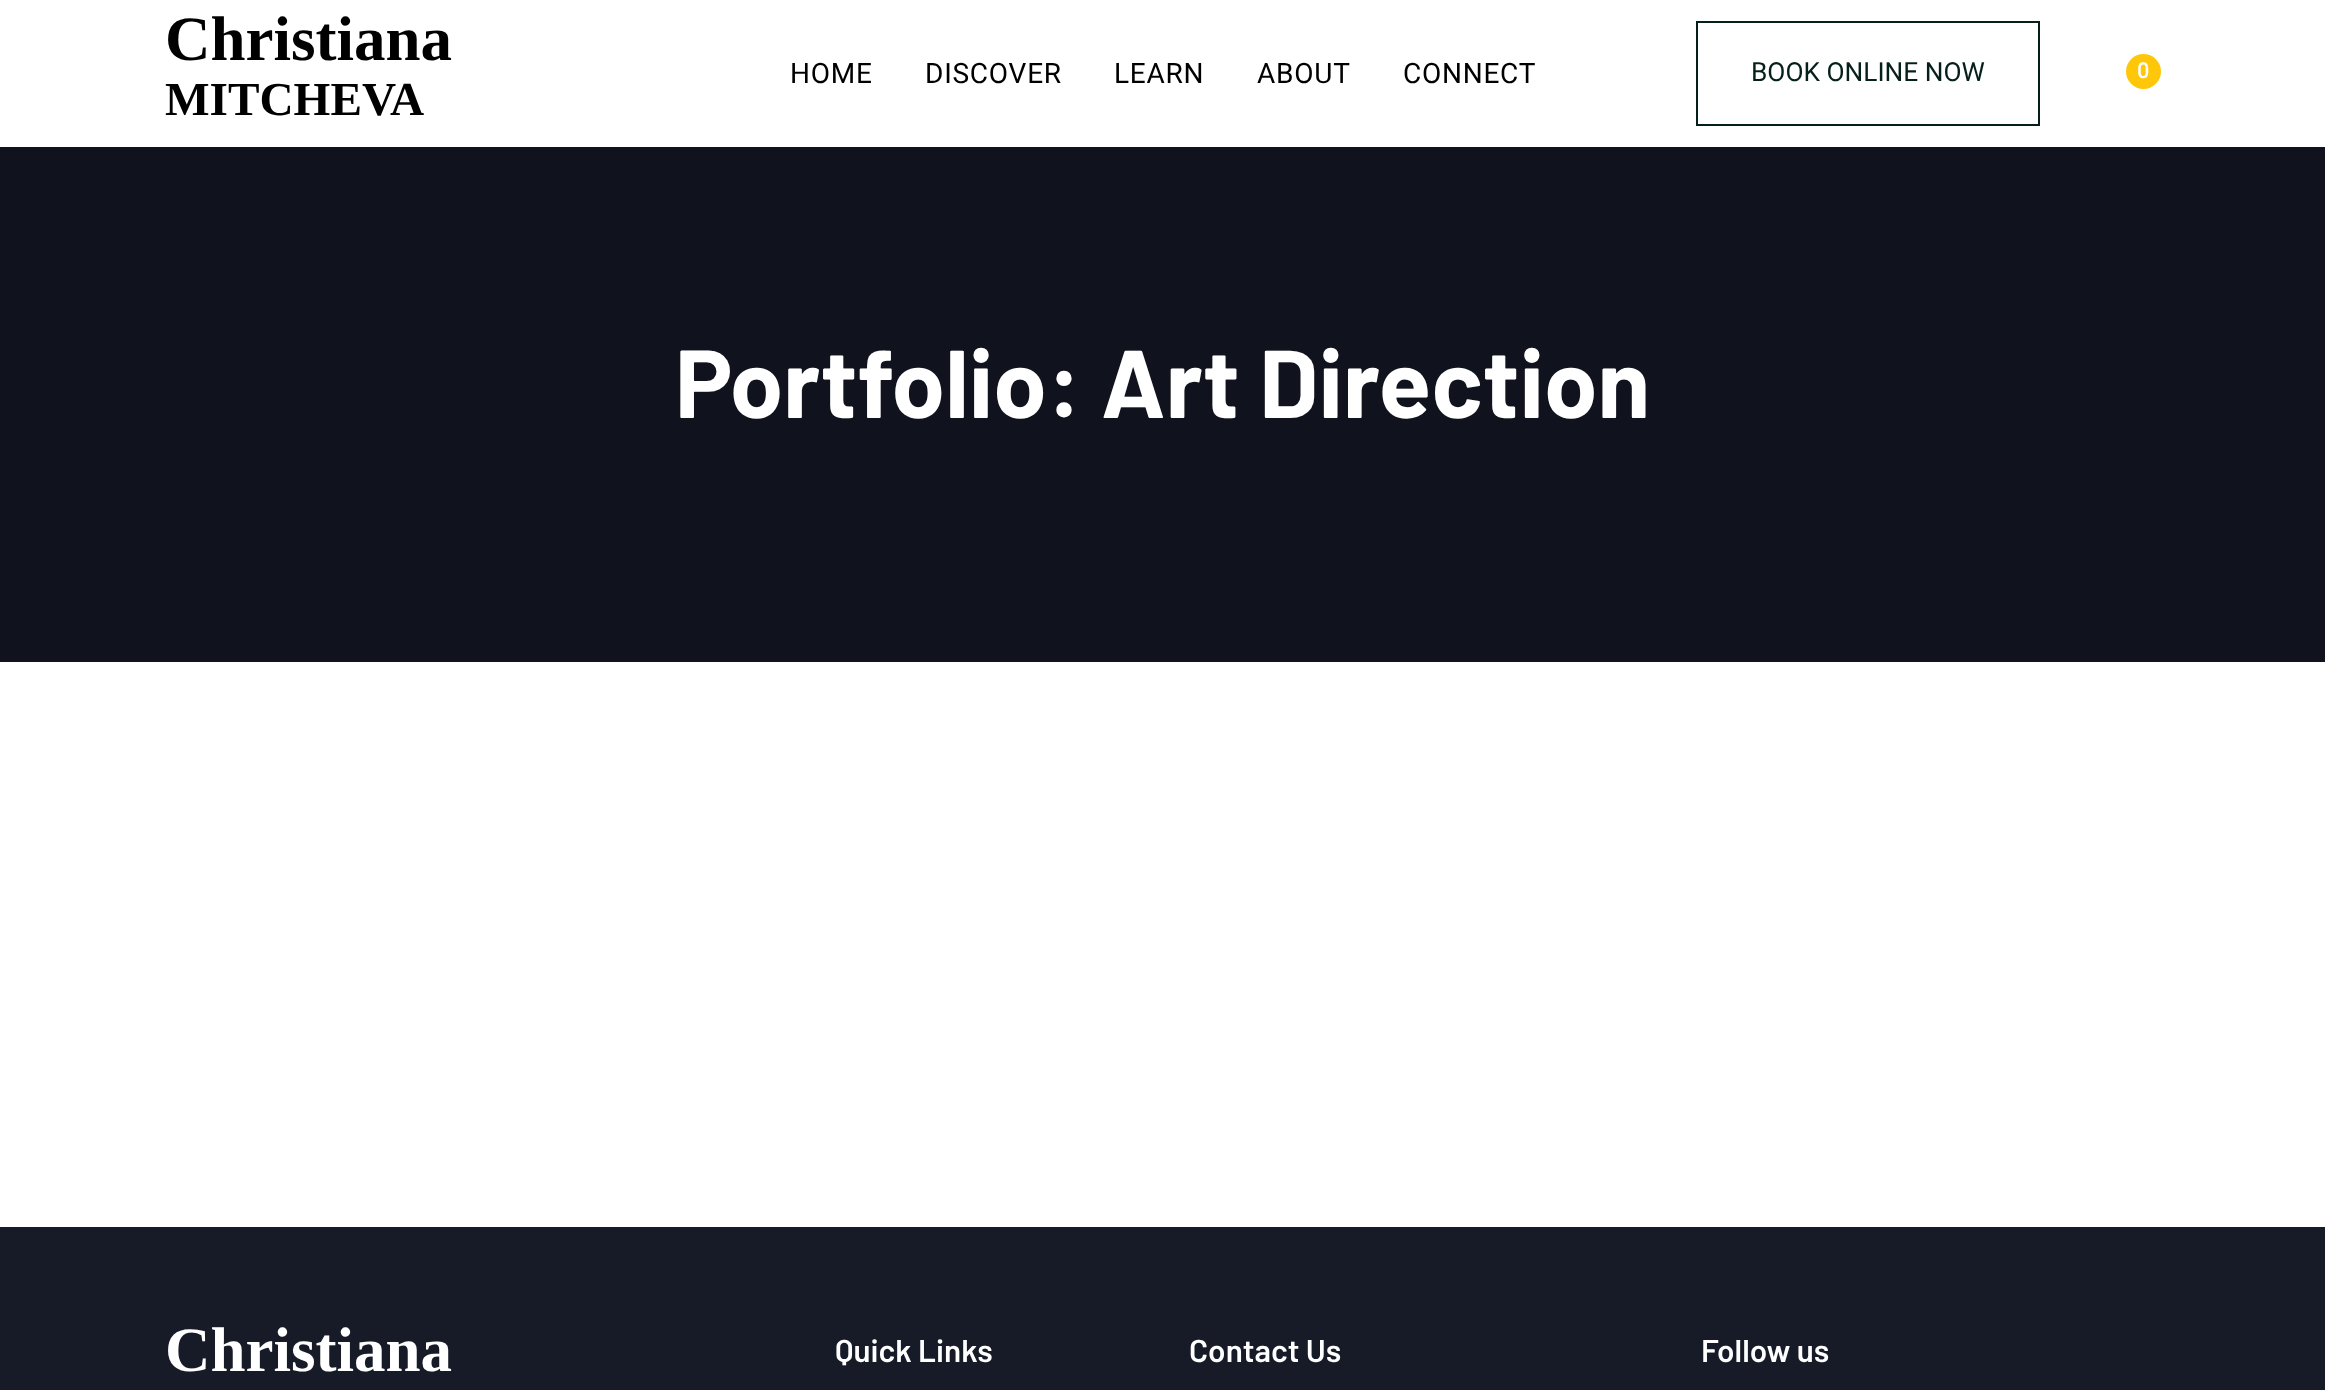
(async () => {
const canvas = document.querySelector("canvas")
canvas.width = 2325
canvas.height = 1390
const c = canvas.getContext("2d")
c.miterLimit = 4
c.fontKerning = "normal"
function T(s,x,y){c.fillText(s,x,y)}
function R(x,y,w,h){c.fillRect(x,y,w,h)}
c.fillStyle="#fff"
R(0,0,2325,1390)
c.font="bold 63px Liberation Serif"
c.fillStyle="#000"
T("Christiana",165,60)
c.font="bold 47.25px Liberation Serif"
T("MITCHEVA",165,115)
c.letterSpacing="0.75px"
c.font="28px Roboto"
T("HOME",790,83)
T("DISCOVER",925,83)
T("LEARN",1114,83)
T("ABOUT",1257,83)
T("CONNECT",1403,83)
c.strokeStyle="#05201b"
c.lineWidth=2
c.strokeRect(1697,22,342,103)
c.letterSpacing="0px"
c.font="26.25px Roboto"
c.fillStyle="#05201b"
T("BOOK ONLINE NOW",1751,81)
c.fillStyle="#ffc70a"
c.beginPath()
c.arc(2143.5,71.5,17.5,0,7)
c.fill()
c.font="bold 21px Roboto"
c.fillStyle="#fff"
T("0",2137,78)
c.fillStyle="#10131d"
R(0,147,2325,515)
c.font="bold 96.25px Barlow"
c.fillStyle="#fff"
T("Portfolio: Art Direction",675,418)
c.fillStyle="#161b27"
R(0,1227,2325,163)
c.font="bold 63px Liberation Serif"
c.fillStyle="#fff"
T("Christiana",165,1371)
c.font="600 31.5px Barlow"
T("Quick Links",835,1362)
T("Contact Us",1189,1362)
T("Follow us",1701,1362)
})()
